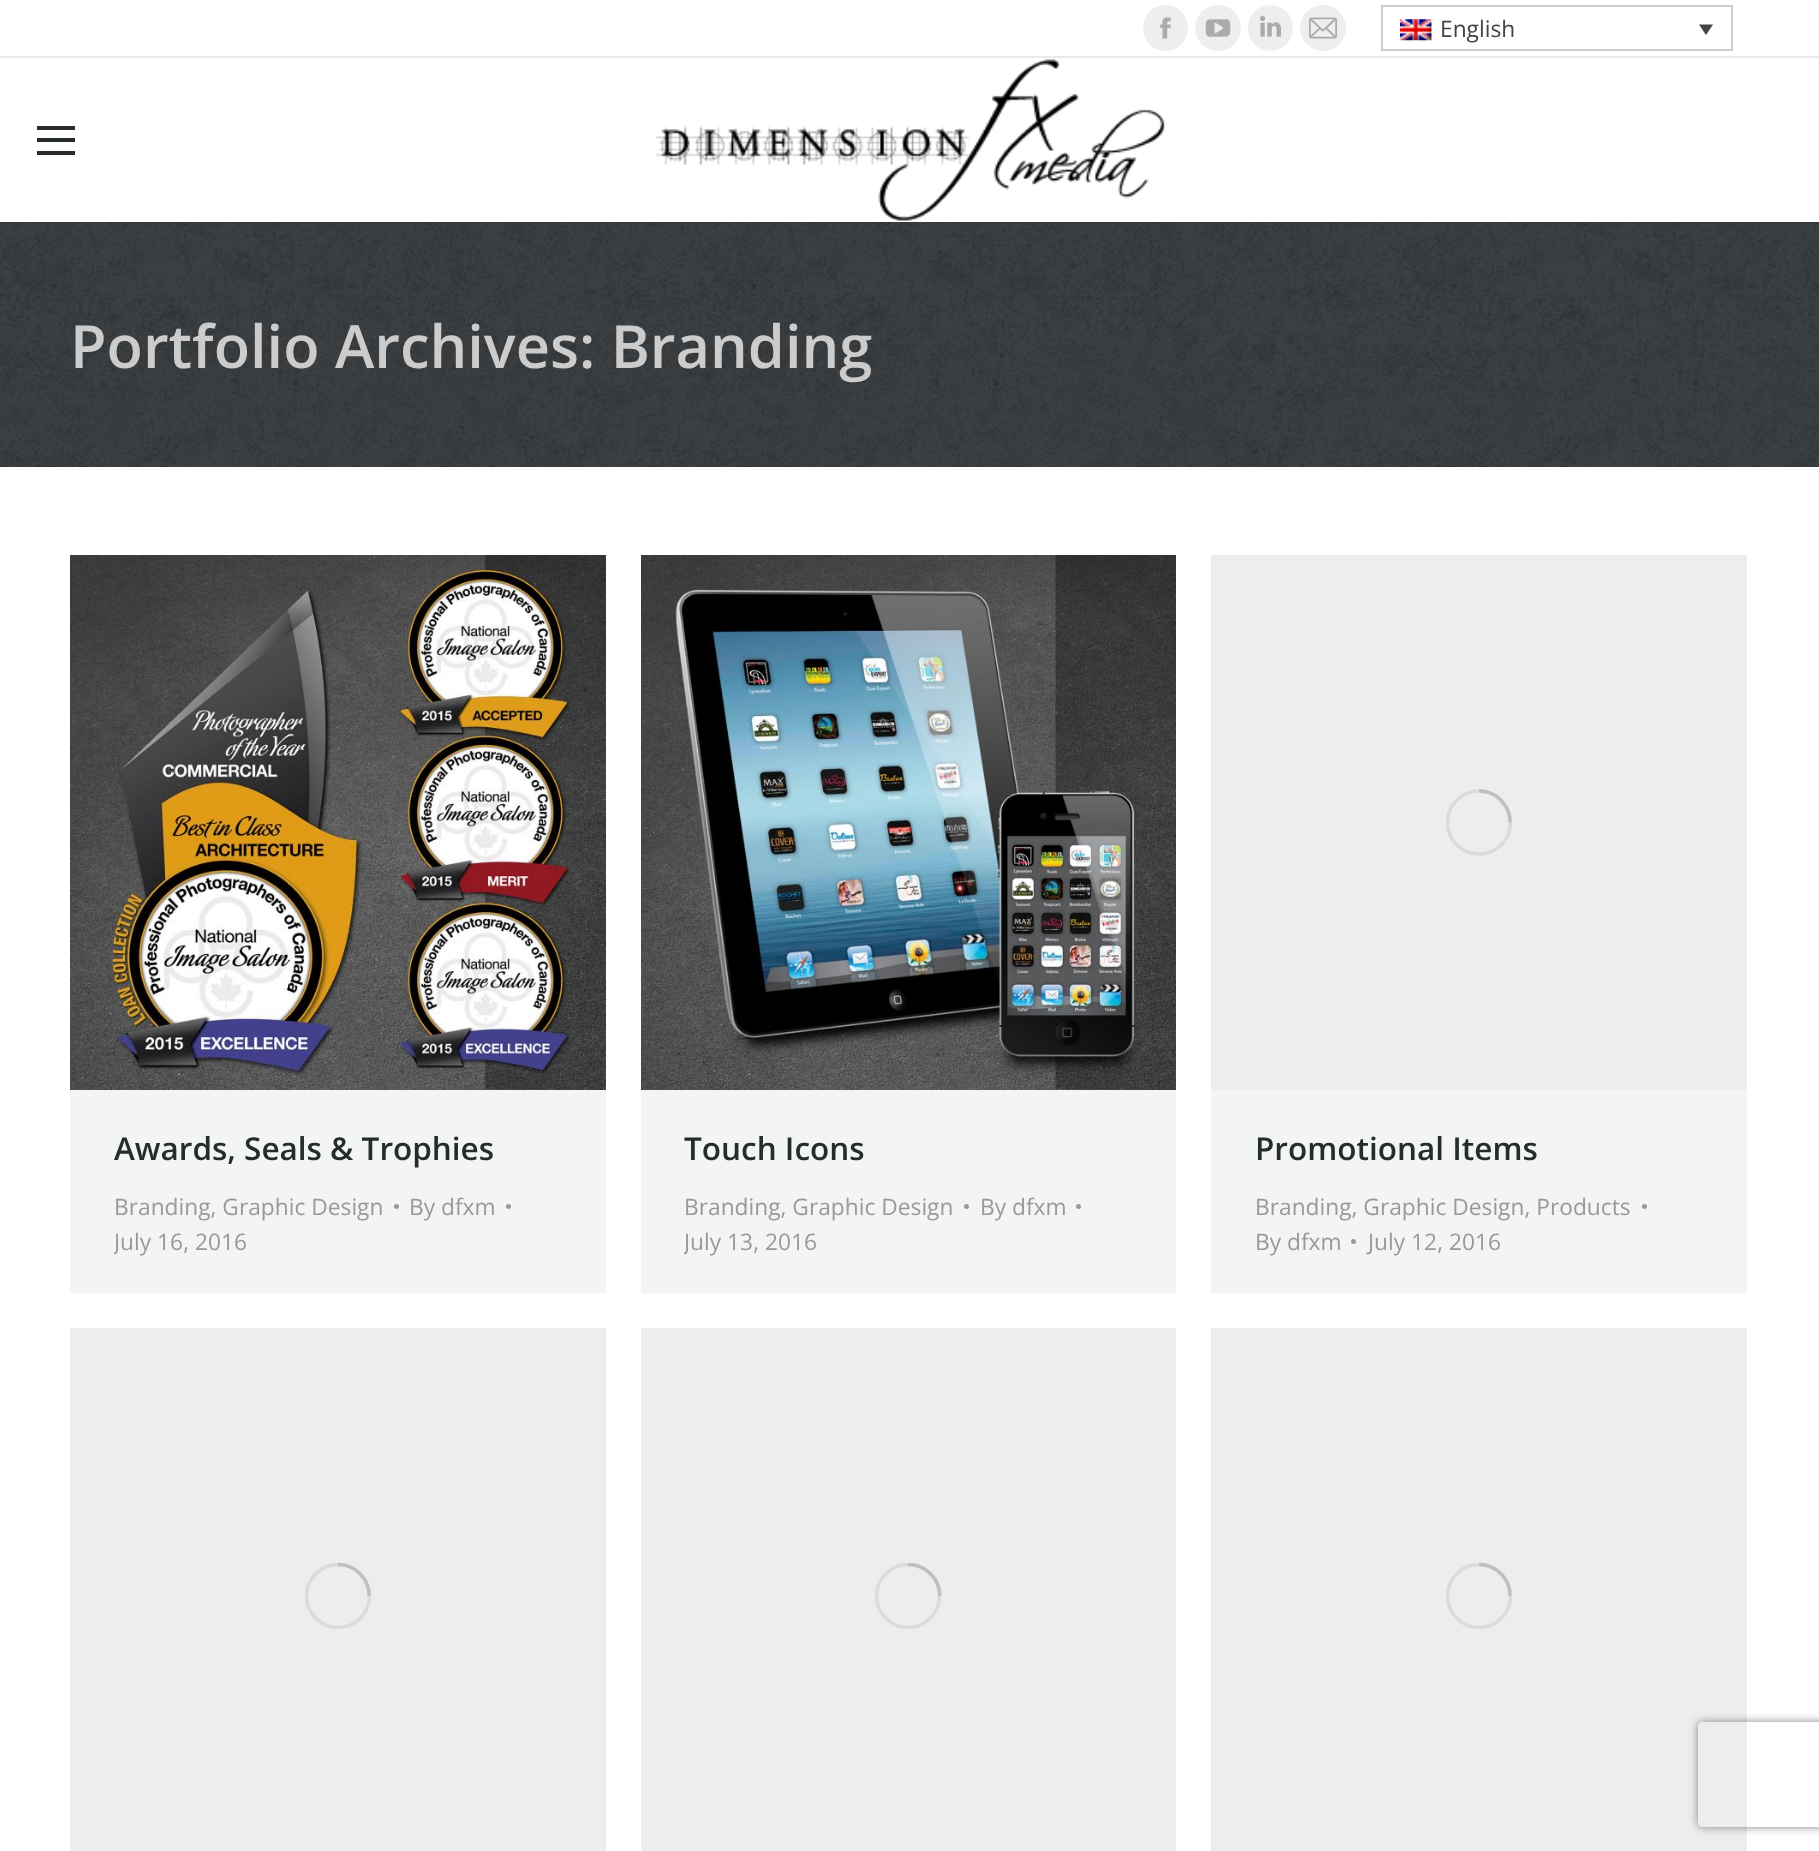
(async () => {
const canvas = document.querySelector("canvas")
canvas.width = 1819
canvas.height = 1851
const c = canvas.getContext("2d")
c.miterLimit = 4
c.fontKerning = "normal"
function T(s,x,y){c.fillText(s,x,y)}
function R(x,y,w,h){c.fillRect(x,y,w,h)}
function Q(x,y,w,h,r){c.beginPath();c.roundRect(x,y,w,h,r);c.fill()}
async function I(src,x,y,w,h){const img=new Image();img.src=src;await img.decode();c.drawImage(img,x,y,w,h)}
let path
c.fillStyle="#fff"
R(0,0,1819,1851)
c.fillStyle="#edeeee"
Q(1143,5,45,46,22.5)
await I("1.png",1160,17,11,22)
c.beginPath()
c.arc(1218,28,23,0,7)
c.fill()
await I("2.png",1205,19,26,18)
Q(1248,5,45,46,22.5)
await I("3.png",1260,15,21,22)
c.beginPath()
c.arc(1323,28,23,0,7)
c.fill()
await I("4.png",1309,17,28,22)
c.strokeStyle="#cdcdcd"
c.lineWidth=2
c.strokeRect(1382,6,350,44)
await I("5.png",1400,19,32,22)
c.font="22.75px Open Sans"
c.fillStyle="#444"
T("English",1440,37)
path = new Path2D("M1699 24.5h14l-7 10.5z")
c.fill(path)
c.fillStyle="#e9e9e9"
R(0,56,1819,2)
c.fillStyle="#262b2e"
R(37,126,38,4)
R(37,138,38,4)
R(37,151,38,4)
await I("6.png",656,59,509,162)
R(0,222,1819,245)
await I("7.png",0,222,1819,245)
c.font="600 59.5px Open Sans"
c.fillStyle="#ccc"
T("Portfolio Archives: Branding",70,368)
c.fillStyle="#f3f4f4"
R(70,1090,536,203)
await I("8.png",70,555,536,535)
c.font="600 31.5px Open Sans"
c.fillStyle="#262b2e"
T("Awards, Seals & Trophies",114,1160)
c.font="22.75px Open Sans"
c.fillStyle="#999"
T("Branding, Graphic Design",114,1215)
c.beginPath()
c.arc(396.5,1206.5,2.5,0,7)
c.fill()
T("By dfxm",409,1215)
c.beginPath()
c.arc(508.5,1206.5,2.5,0,7)
c.fill()
c.save()
c.beginPath()
c.rect(114,1171,448,87)
c.clip()
T("July 16, 2016",114,1250)
c.restore()
c.fillStyle="#f3f4f4"
R(641,1090,535,203)
await I("9.png",641,555,535,535)
c.font="600 31.5px Open Sans"
c.fillStyle="#262b2e"
T("Touch Icons",684,1160)
c.font="22.75px Open Sans"
c.fillStyle="#999"
T("Branding, Graphic Design",684,1215)
c.beginPath()
c.arc(966.5,1206.5,2.5,0,7)
c.fill()
T("By dfxm",980,1215)
c.beginPath()
c.arc(1078.5,1206.5,2.5,0,7)
c.fill()
c.save()
c.beginPath()
c.rect(684,1171,448,87)
c.clip()
T("July 13, 2016",684,1250)
c.restore()
c.fillStyle="#f3f4f4"
R(1211,1090,536,203)
c.fillStyle="#ededed"
R(1211,555,536,535)
c.save()
c.beginPath()
c.rect(1446,789,66,67)
c.clip()
c.beginPath()
c.arc(1479,822.5,31.5,0,7)
c.strokeStyle="#dbdbdb"
c.lineWidth=3.5
c.stroke()
c.restore()
path = new Path2D("M1510 822.5c0-17.5-14-31.5-31-31.5")
c.strokeStyle="#676b6d40"
c.lineWidth=3.5
c.stroke(path)
c.font="600 31.5px Open Sans"
c.fillStyle="#262b2e"
T("Promotional Items",1255,1160)
c.font="22.75px Open Sans"
c.fillStyle="#999"
T("Branding, Graphic Design, Products",1255,1215)
c.beginPath()
c.arc(1644.5,1206.5,2.5,0,7)
c.fill()
T("By dfxm",1255,1250)
c.beginPath()
c.arc(1353.5,1241.5,2.5,0,7)
c.fill()
T("July 12, 2016",1368,1250)
c.fillStyle="#ededed"
R(70,1328,536,523)
c.save()
c.beginPath()
c.rect(305,1563,66,66)
c.clip()
c.beginPath()
c.arc(338,1596,31.5,0,7)
c.strokeStyle="#dbdbdb"
c.stroke()
c.restore()
path = new Path2D("M369 1596c0-17.5-14-31.5-31-31.5")
c.stroke(path)
R(641,1328,535,523)
c.save()
c.beginPath()
c.rect(875,1563,67,66)
c.clip()
c.beginPath()
c.arc(908,1596,31.5,0,7)
c.strokeStyle="#dbdbdb"
c.stroke()
c.restore()
path = new Path2D("M940 1596c0-17.5-14.5-31.5-32-31.5")
c.stroke(path)
R(1211,1328,536,523)
c.save()
c.beginPath()
c.rect(1446,1563,66,66)
c.clip()
c.beginPath()
c.arc(1479,1596,31.5,0,7)
c.strokeStyle="#dbdbdb"
c.stroke()
c.restore()
path = new Path2D("M1510 1596c0-17.5-14-31.5-31-31.5")
c.stroke(path)
c.save()
path = new Path2D("M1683 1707h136v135h-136zm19 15h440c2 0 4 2 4 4v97c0 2-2 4-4 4h-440c-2 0-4-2-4-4v-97c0-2 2-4 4-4z")
c.clip(path,"evenodd")
c.fillStyle="#808080"
c.filter="blur(4.5px)"
c.beginPath()
c.roundRect(1698,1722,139,105,4)
c.fill()
c.filter="none"
c.restore()
})()
